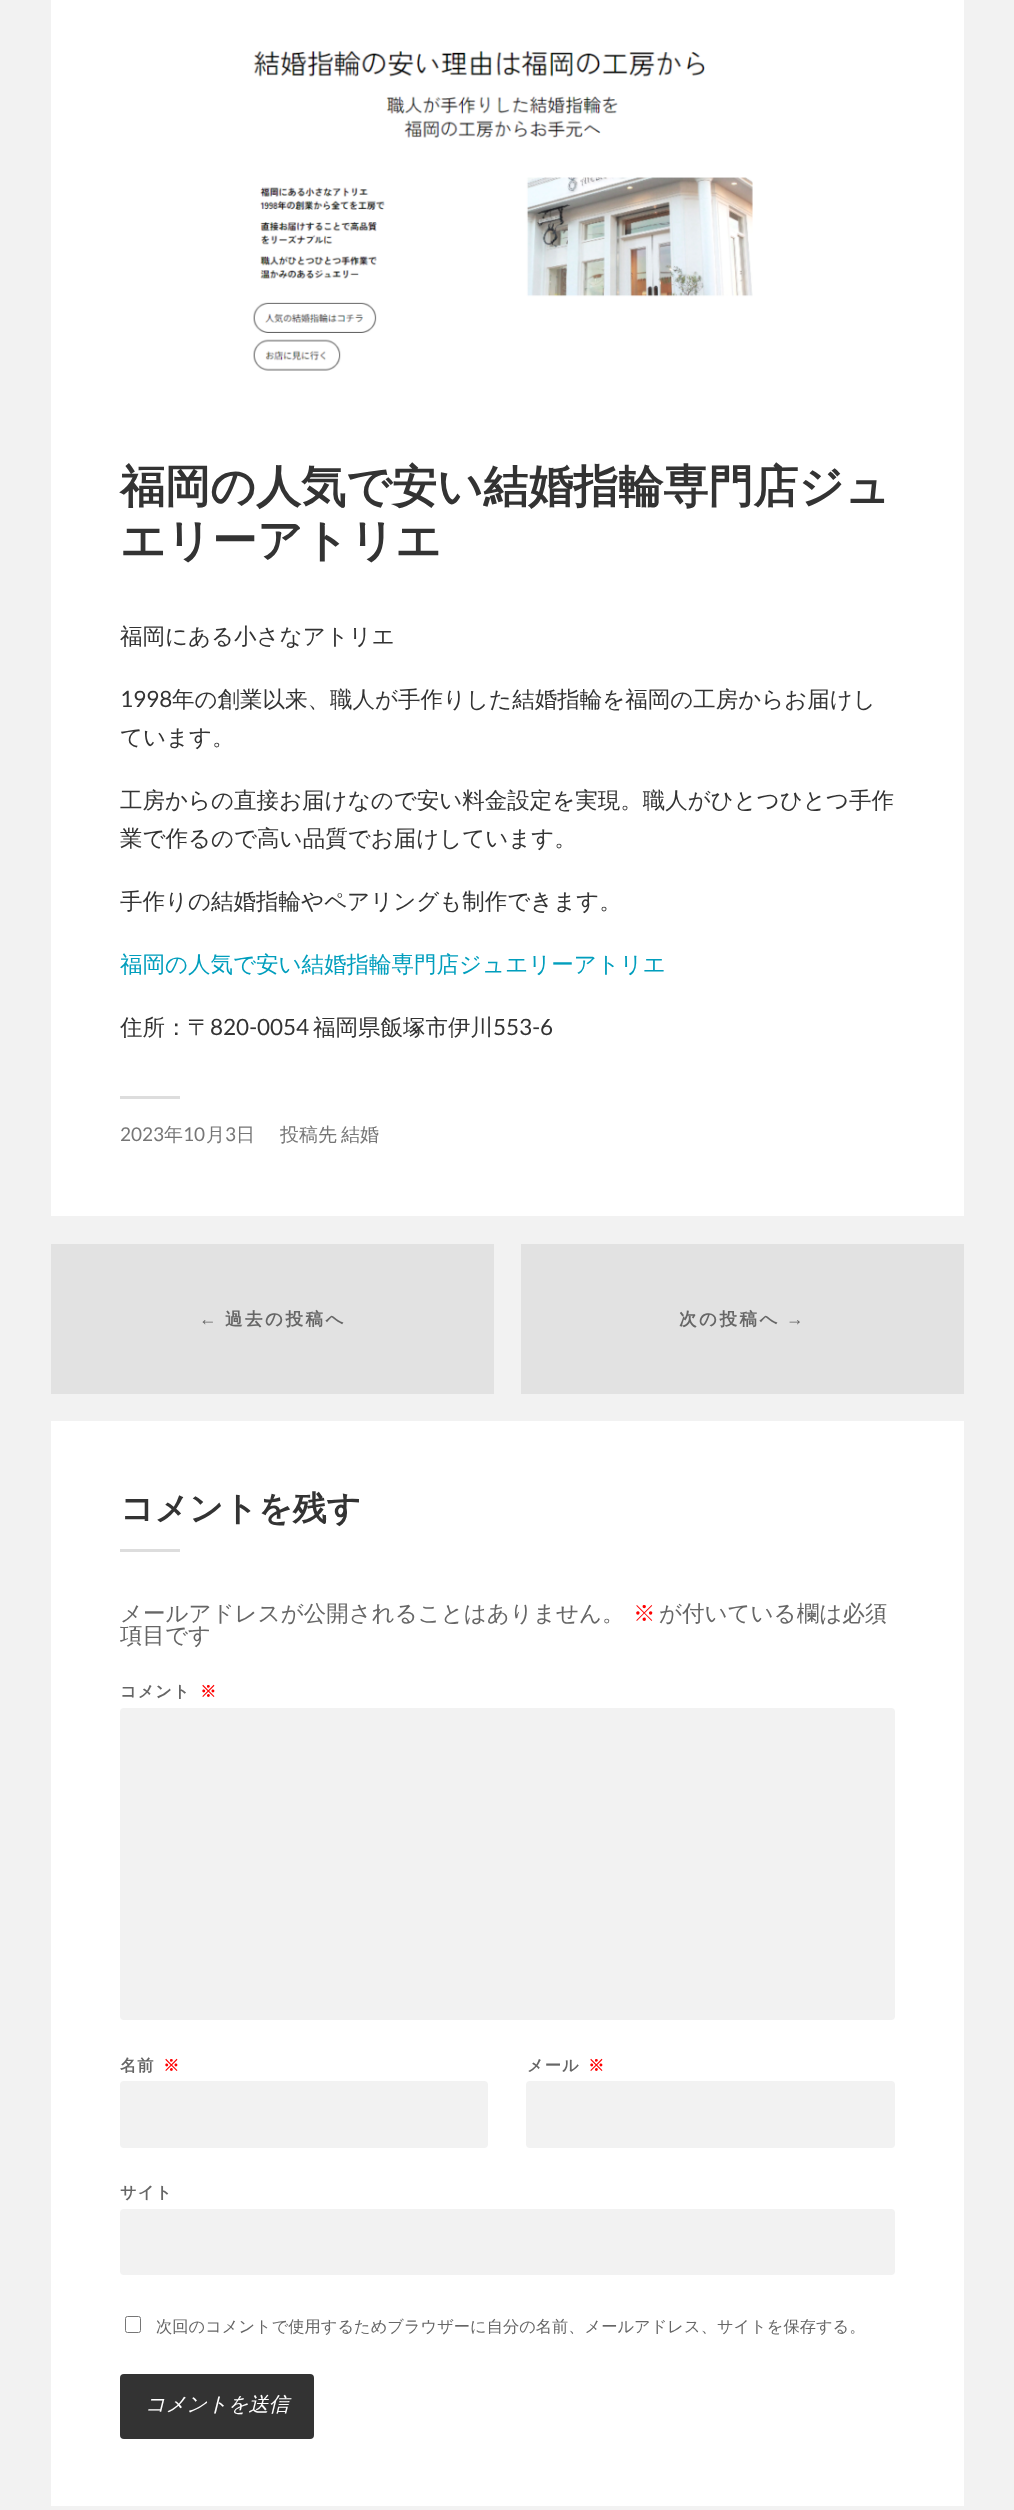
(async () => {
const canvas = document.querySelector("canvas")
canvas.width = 1014
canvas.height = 2510
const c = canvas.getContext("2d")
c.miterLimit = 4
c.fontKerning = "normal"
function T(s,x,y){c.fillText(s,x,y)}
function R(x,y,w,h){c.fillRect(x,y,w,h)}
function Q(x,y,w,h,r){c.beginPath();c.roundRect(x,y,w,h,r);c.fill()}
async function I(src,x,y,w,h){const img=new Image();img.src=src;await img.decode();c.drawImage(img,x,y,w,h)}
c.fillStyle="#f2f2f2"
R(0,0,1014,2510)
c.fillStyle="#fff"
R(51,0,913,2506)
await I("1.png",253,50,500,321)
c.font="bold 45px WenQuanYi Zen Hei"
c.fillStyle="#333"
T("福岡の人気で安い結婚指輪専門店ジュ",120,502)
T("エリーアトリエ",120,556)
c.font="500 22.5px WenQuanYi Zen Hei"
T("福岡にある小さなアトリエ",120,644)
c.font="22.5px Lato"
T("1998",120,707)
c.font="500 22.5px WenQuanYi Zen Hei"
T("年の創業以来、職人が手作りした結婚指輪を福岡の工房からお届けし",172,707)
T("ています。",120,745)
T("工房からの直接お届けなので安い料金設定を実現。職人がひとつひとつ手作",120,808)
T("業で作るので高い品質でお届けしています。",120,846)
T("手作りの結婚指輪やペアリングも制作できます。",120,909)
c.fillStyle="#019ebd"
T("福岡の人気で安い結婚指輪専門店ジュエリーアトリエ",120,972)
c.fillStyle="#333"
T("住所：〒",120,1035)
c.font="22.5px Lato"
T("820-0054",210,1035)
c.font="500 22.5px WenQuanYi Zen Hei"
T("福岡県飯塚市伊川",313,1035)
c.font="22.5px Lato"
T("553-6",493,1035)
c.fillStyle="#ddd"
R(120,1096,60,3)
c.font="19px Lato"
c.fillStyle="#767676"
T("2023",120,1141)
c.font="500 19px WenQuanYi Zen Hei"
T("年",164,1141)
c.font="19px Lato"
T("10",183,1141)
c.font="500 19px WenQuanYi Zen Hei"
T("月",206,1141)
c.font="19px Lato"
T("3",225,1141)
c.font="500 19px WenQuanYi Zen Hei"
T("日",236,1141)
T("投稿先",280,1141)
T("結婚",341,1141)
c.fillStyle="#f2f2f2"
R(51,1216,913,205)
c.fillStyle="#e2e2e2"
R(51,1244,443,150)
c.letterSpacing="2.5px"
c.font="bold 17.5px Liberation Sans"
c.fillStyle="#666"
T("←",199,1325)
c.font="bold 17.5px WenQuanYi Zen Hei"
T("過去の投稿へ",225,1325)
c.fillStyle="#e2e2e2"
R(521,1244,443,150)
c.fillStyle="#666"
T("次の投稿へ",679,1325)
c.font="bold 17.5px Liberation Sans"
T("→",786,1325)
c.letterSpacing="0px"
c.font="bold 33.75px WenQuanYi Zen Hei"
c.fillStyle="#333"
T("コメントを残す",120,1520)
c.fillStyle="#ddd"
R(120,1549,60,3)
c.font="500 22.5px WenQuanYi Zen Hei"
c.fillStyle="#666"
T("メールアドレスが公開されることはありません。",120,1621)
c.fillStyle="#f00"
T("※",633,1621)
c.fillStyle="#666"
T("が付いている欄は必須",659,1621)
T("項目です",120,1643)
c.letterSpacing="1px"
c.font="bold 16.25px WenQuanYi Zen Hei"
T("コメント",120,1697)
c.fillStyle="#f00"
T("※",200,1697)
c.fillStyle="#f2f2f2"
Q(120,1708,775,312,4)
c.fillStyle="#666"
T("名前",120,2071)
c.fillStyle="#f00"
T("※",163,2071)
c.fillStyle="#f2f2f2"
Q(120,2081,368,67,4)
c.fillStyle="#666"
T("メール",527,2071)
c.fillStyle="#f00"
T("※",588,2071)
c.fillStyle="#f2f2f2"
Q(526,2081,369,67,4)
c.fillStyle="#666"
T("サイト",120,2198)
c.fillStyle="#f2f2f2"
Q(120,2209,775,66,4)
c.beginPath()
c.roundRect(125.5,2316.5,15,16,2)
c.strokeStyle="#767676"
c.stroke()
c.letterSpacing="0px"
c.font="500 16.25px WenQuanYi Zen Hei"
c.fillStyle="#666"
T("次回のコメントで使用するためブラウザーに自分の名前、メールアドレス、サイトを保存する。",156,2332)
c.fillStyle="#333"
Q(120,2374,194,65,4)
c.font="italic 500 20.25px WenQuanYi Zen Hei"
c.fillStyle="#fff"
T("コメントを送信",145,2411)
})()
